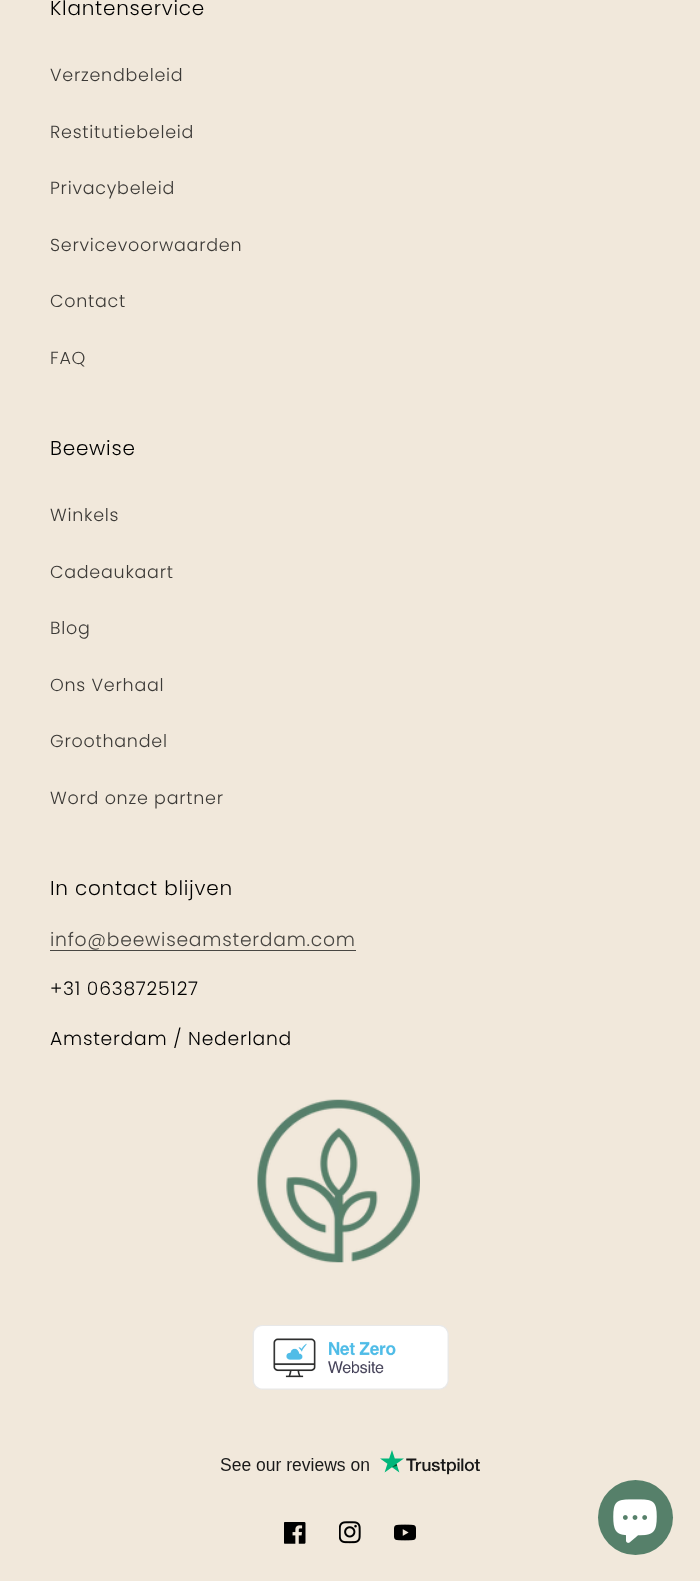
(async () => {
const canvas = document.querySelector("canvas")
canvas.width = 700
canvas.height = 1581
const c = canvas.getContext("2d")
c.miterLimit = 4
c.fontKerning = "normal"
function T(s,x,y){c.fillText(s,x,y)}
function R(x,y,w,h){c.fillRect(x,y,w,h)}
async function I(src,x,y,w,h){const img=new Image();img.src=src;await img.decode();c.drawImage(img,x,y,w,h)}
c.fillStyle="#f1e8db"
R(0,0,700,1581)
c.letterSpacing="0.75px"
c.font="300 20px Poppins"
c.fillStyle="#000"
T("Klantenservice",50,15)
c.font="300 17.5px Poppins"
c.fillStyle="#3c3a37"
T("Verzendbeleid",50,81)
T("Restitutiebeleid",50,138)
T("Privacybeleid",50,194)
T("Servicevoorwaarden",50,251)
T("Contact",50,307)
T("FAQ",50,364)
c.font="300 20px Poppins"
c.fillStyle="#000"
T("Beewise",50,455)
c.font="300 17.5px Poppins"
c.fillStyle="#3c3a37"
T("Winkels",50,521)
T("Cadeaukaart",50,578)
T("Blog",50,634)
T("Ons Verhaal",50,691)
T("Groothandel",50,747)
T("Word onze partner",50,804)
c.font="300 20px Poppins"
c.fillStyle="#000"
T("In contact blijven",50,895)
c.font="300 18.75px Poppins"
c.fillStyle="#484642"
T("info@beewiseamsterdam.com",50,946)
R(50,950,306,1)
c.fillStyle="#000"
T("+31 0638725127",50,995)
T("Amsterdam / Nederland",50,1045)
await I("1.png",257,1099,163,164)
await I("2.png",252,1325,197,65)
await I("3.png",220,1450,260,25)
await I("4.png",284,1522,22,22)
await I("5.png",339,1521,22,23)
await I("6.png",394,1524,22,17)
c.fillStyle="#56806a"
c.beginPath()
c.arc(635.5,1517.5,37.5,0,7)
c.fill()
await I("7.png",613,1499,44,44)
})()
